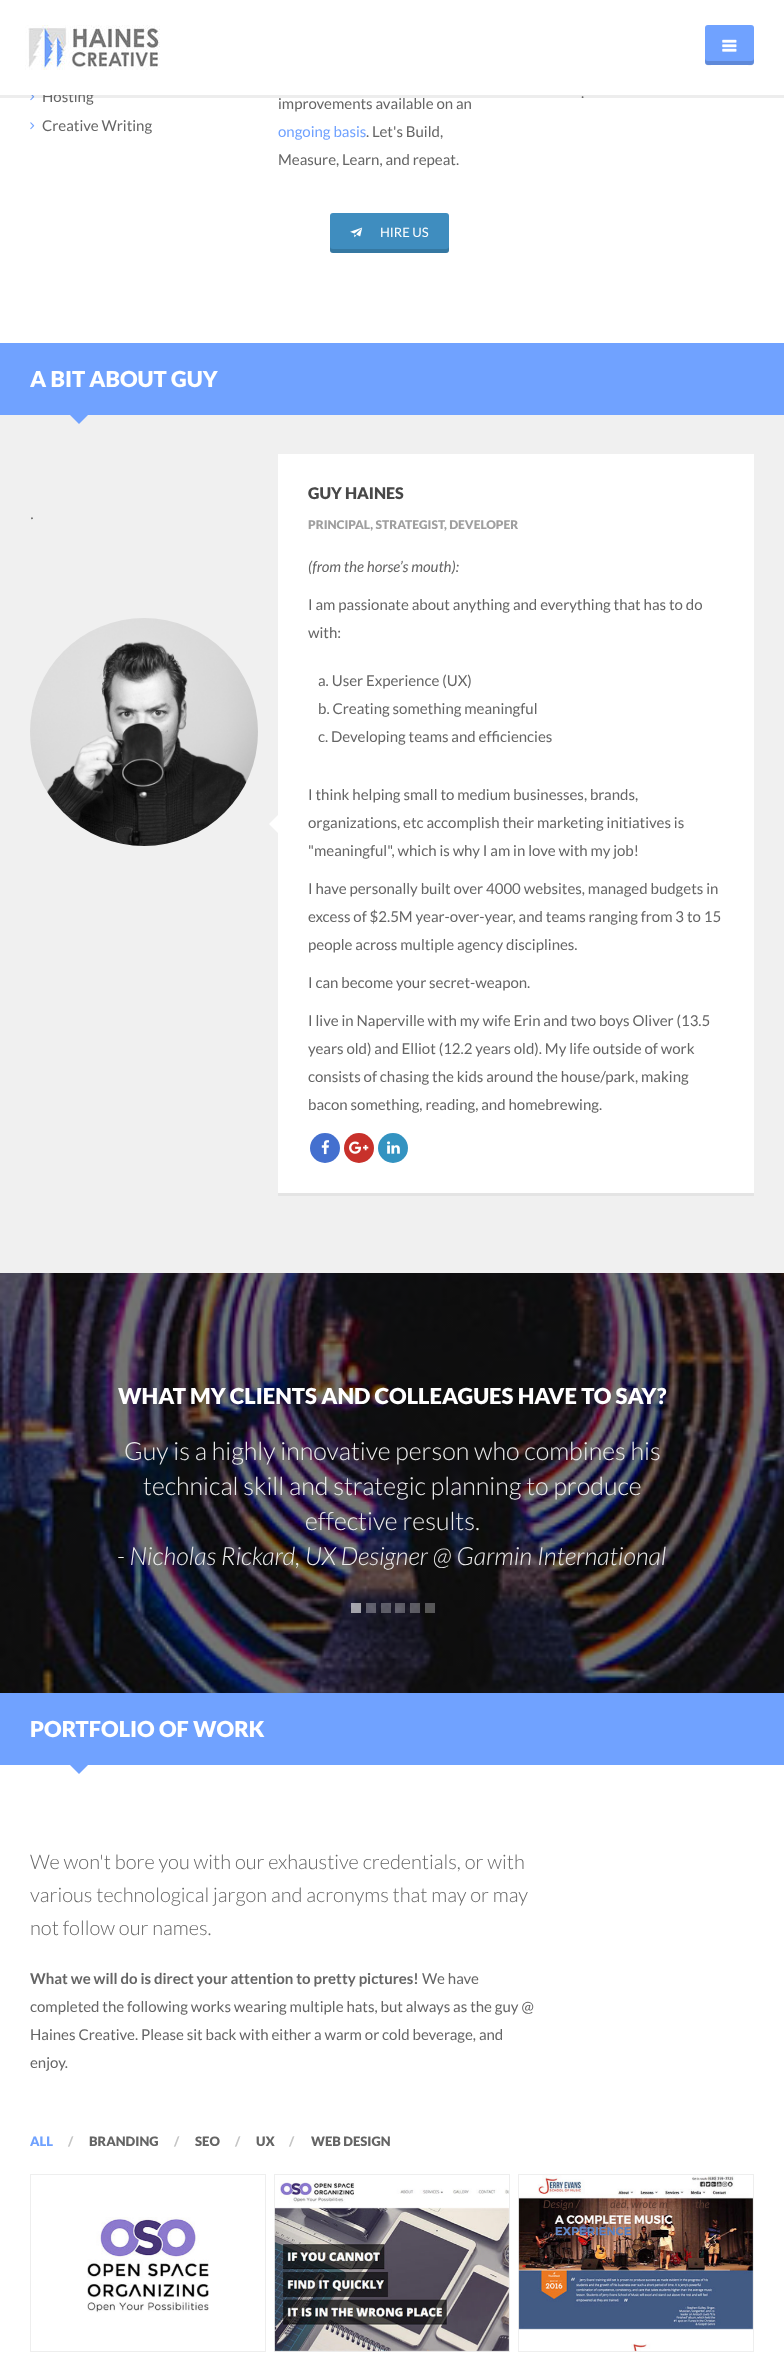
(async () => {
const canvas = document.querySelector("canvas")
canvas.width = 784
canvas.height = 2355
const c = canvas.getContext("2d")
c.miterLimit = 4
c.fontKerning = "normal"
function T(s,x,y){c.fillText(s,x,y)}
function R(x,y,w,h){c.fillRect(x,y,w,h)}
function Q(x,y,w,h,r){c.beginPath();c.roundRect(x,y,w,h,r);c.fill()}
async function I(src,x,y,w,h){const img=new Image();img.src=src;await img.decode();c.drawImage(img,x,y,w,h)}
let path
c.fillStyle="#fff"
R(0,0,784,2355)
await I("3.png",30,95,5,6)
c.fillStyle="#00000012"
R(0,95,784,3)
c.font="15px Lato"
c.fillStyle="#656565"
T("Hosting",42,102)
c.fillStyle="#fff"
R(43,91,51,4)
await I("1.png",25,25,135,45)
c.fillStyle="#70a2ff"
Q(705,25,49,40,3)
c.fillStyle="#00000026"
path = new Path2D("M705 58c0 9 1 7 10 7h29c9 0 10 2 10-7c0 2-1 3-3 3h-43c-2 0-3-1-3-3z")
c.fill(path)
await I("2.png",722,39,15,13)
await I("4.png",30,122,5,8)
c.fillStyle="#656565"
T("Creative Writing",42,131)
T("improvements available on an",278,109)
c.fillStyle="#70a2ff"
T("ongoing basis",278,137)
c.fillStyle="#656565"
T(". Let's Build,",366,137)
T("Measure, Learn, and repeat.",278,165)
T(".",581,98)
c.fillStyle="#3f8dbf"
Q(330,213,119,40,3)
c.fillStyle="#00000026"
path = new Path2D("M330 246v4c0 2 1 3 3 3h113c2 0 3-1 3-3v-4c0 2-1 3-3 3h-113c-2 0-3-1-3-3z")
c.fill(path)
await I("5.png",350,227,13,11)
c.font="13px Lato"
c.fillStyle="#fff"
T("HIRE US",380,237)
c.fillStyle="#f0f0f0"
R(0,415,784,858)
c.fillStyle="#70a2ff"
R(0,343,784,72)
c.font="900 22px Lato"
c.fillStyle="#fff"
T("A BIT ABOUT GUY",30,387)
c.fillStyle="#70a2ff"
path = new Path2D("M70 415h18l-9 9z")
c.fill(path)
c.font="300 20px Lato"
c.fillStyle="#656565"
T(".",30,519)
await I("6.png",30,618,228,228)
c.fillStyle="#e4e4e4"
R(278,1193,476,3)
c.fillStyle="#fff"
R(278,454,476,739)
c.font="900 16px Lato"
c.fillStyle="#484848"
T("GUY HAINES",308,499)
c.font="900 12px Lato"
c.fillStyle="#9f9f9f"
T("PRINCIPAL, STRATEGIST, DEVELOPER",308,529)
c.font="italic 15px Lato"
c.fillStyle="#656565"
T("(from the horse’s mouth):",308,572)
c.font="15px Lato"
T("I am passionate about anything and everything that has to do",308,610)
T("with:",308,638)
T("a. User Experience (UX)",318,686)
T("b. Creating something meaningful",318,714)
T("c. Developing teams and efficiencies",318,742)
c.fillStyle="#fff"
path = new Path2D("M278 815v18l-9-9z")
c.fill(path)
c.fillStyle="#656565"
T("I think helping small to medium businesses, brands,",308,800)
T("organizations, etc accomplish their marketing initiatives is",308,828)
T("\"meaningful\", which is why I am in love with my job!",308,856)
T("I have personally built over 4000 websites, managed budgets in",308,894)
T("excess of $2.5M year-over-year, and teams ranging from 3 to 15",308,922)
T("people across multiple agency disciplines.",308,950)
T("I can become your secret-weapon.",308,988)
T("I live in Naperville with my wife Erin and two boys Oliver (13.5",308,1026)
T("years old) and Elliot (12.2 years old). My life outside of work",308,1054)
T("consists of chasing the kids around the house/park, making",308,1082)
T("bacon something, reading, and homebrewing.",308,1110)
c.fillStyle="#4470cf"
c.beginPath()
c.arc(325,1148,15,0,7)
c.fill()
await I("7.png",321,1140,9,15)
c.fillStyle="#c8312b"
c.beginPath()
c.arc(359,1148,15,0,7)
c.fill()
await I("8.png",349,1141,20,13)
c.fillStyle="#3393c1"
c.beginPath()
c.arc(393,1148,15,0,7)
c.fill()
await I("9.png",387,1141,13,13)
await I("10.png",0,1273,784,420)
c.font="900 22px Lato"
c.fillStyle="#fff"
T("WHAT MY CLIENTS AND COLLEAGUES HAVE TO SAY?",118,1404)
c.font="300 25px Lato"
c.fillStyle="#ededed"
T("Guy is a highly innovative person who combines his",124,1460)
T("technical skill and strategic planning to produce",143,1495)
T("effective results.",305,1530)
c.font="italic 300 25px Lato"
T("- Nicholas Rickard, UX Designer @ Garmin International",117,1565)
c.fillStyle="#ffffff99"
R(351,1603,10,10)
c.fillStyle="#ffffff4d"
R(366,1603,10,10)
R(381,1603,10,10)
R(395,1603,10,10)
R(410,1603,10,10)
R(425,1603,10,10)
c.fillStyle="#70a2ff"
R(0,1693,784,72)
c.font="900 22px Lato"
c.fillStyle="#fff"
T("PORTFOLIO OF WORK",30,1737)
c.fillStyle="#70a2ff"
path = new Path2D("M70 1765h18l-9 9z")
c.fill(path)
c.font="300 20px Lato"
c.fillStyle="#656565"
T("We won't bore you with our exhaustive credentials, or with",30,1869)
T("various technological jargon and acronyms that may or may",30,1902)
T("not follow our names.",30,1935)
c.font="bold 15px Lato"
T("What we will do is direct your attention to pretty pictures!",30,1984)
c.font="15px Lato"
T("We have",422,1984)
T("completed the following works wearing multiple hats, but always as the guy @",30,2012)
T("Haines Creative. Please sit back with either a warm or cold beverage, and",30,2040)
T("enjoy.",30,2068)
c.font="900 13px Lato"
c.fillStyle="#70a2ff"
T("ALL",30,2146)
c.fillStyle="#c5c5c5"
T("/",68,2146)
c.fillStyle="#656565"
T("BRANDING",89,2146)
c.fillStyle="#c5c5c5"
T("/",174,2146)
c.fillStyle="#656565"
T("SEO",195,2146)
c.fillStyle="#c5c5c5"
T("/",235,2146)
c.fillStyle="#656565"
T("UX",256,2146)
c.fillStyle="#c5c5c5"
T("/",289,2146)
c.fillStyle="#656565"
T("WEB DESIGN",311,2146)
c.strokeStyle="#eee"
c.strokeRect(30.5,2174.5,235,177)
await I("11.png",87,2217,122,96)
c.strokeRect(274.5,2174.5,235,177)
await I("12.png",274,2180,235,172)
c.strokeRect(518.5,2174.5,235,177)
await I("13.png",518,2175,235,177)
c.font="italic 11px Lato"
c.fillStyle="#593a30"
T("Design /",543,2208)
T("ded, wrote m",610,2208)
T("the",695,2208)
c.fillStyle="#433842"
T("co",543,2238)
})()
